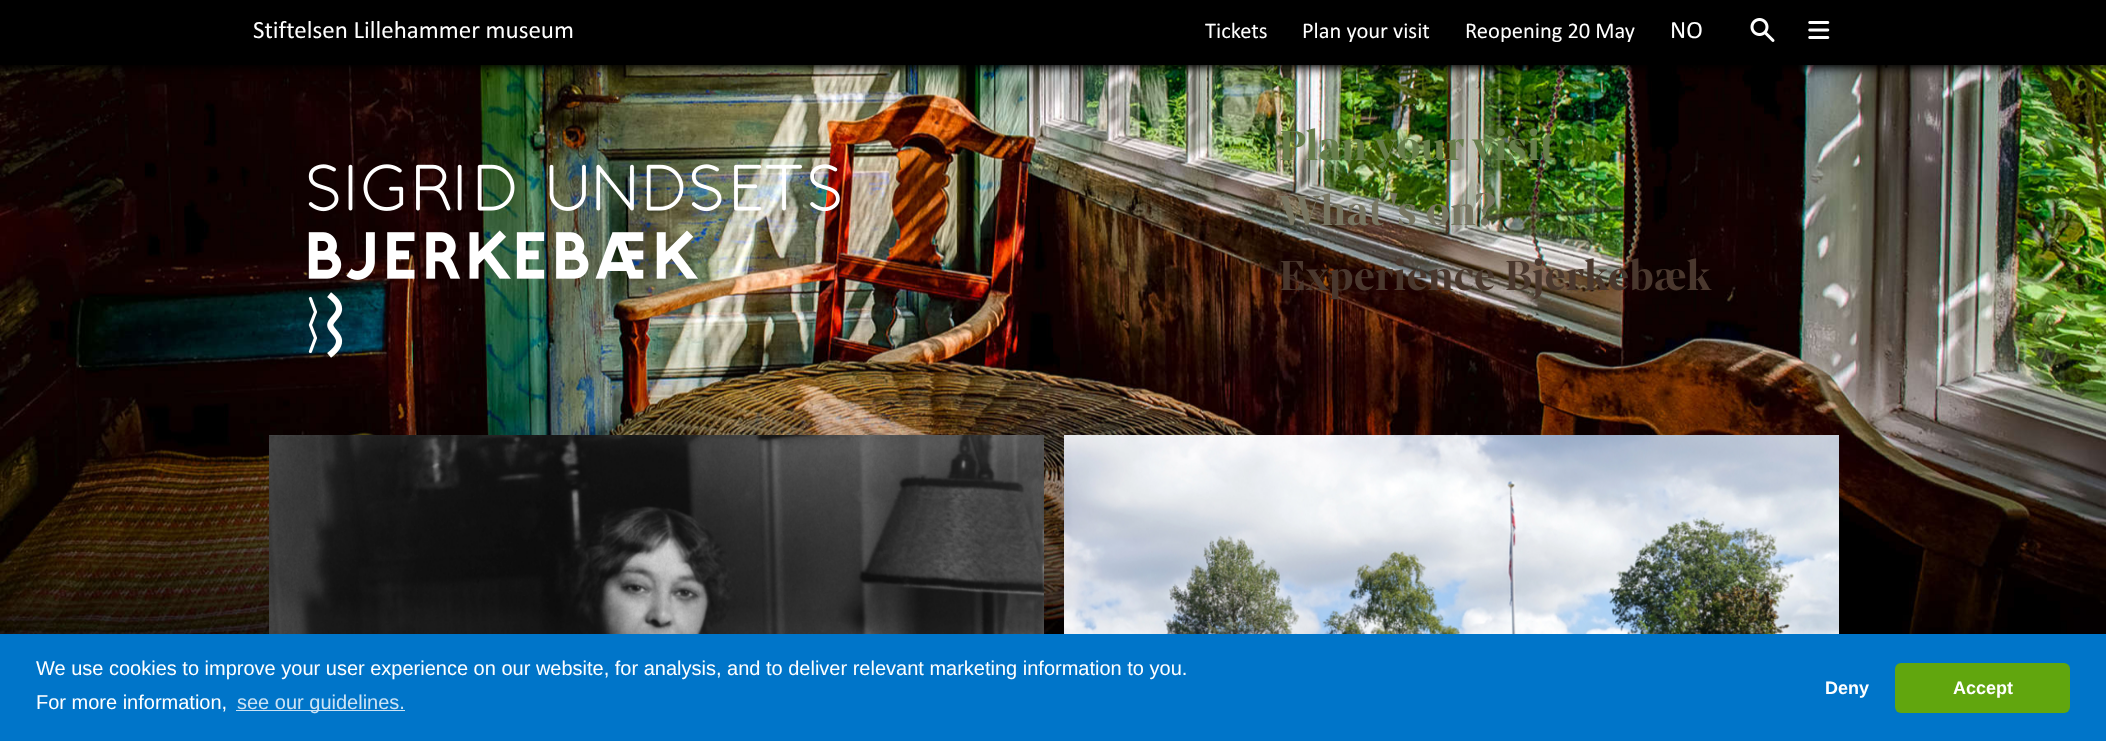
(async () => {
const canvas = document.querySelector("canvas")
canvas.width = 2106
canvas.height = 741
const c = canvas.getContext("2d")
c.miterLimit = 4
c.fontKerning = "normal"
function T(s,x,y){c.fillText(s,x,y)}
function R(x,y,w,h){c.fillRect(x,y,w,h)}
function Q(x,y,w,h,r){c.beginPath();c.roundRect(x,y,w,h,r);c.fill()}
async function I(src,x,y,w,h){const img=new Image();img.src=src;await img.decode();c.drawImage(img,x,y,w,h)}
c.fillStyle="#fff"
R(0,0,2106,741)
await I("3.png",0,65,2106,569)
c.fillStyle="#000"
c.filter="blur(5px)"
c.beginPath()
c.rect(-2,-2,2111,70)
c.fill()
c.filter="none"
R(0,0,2106,65)
c.font="25px Calibri"
c.fillStyle="#fff"
T("Stiftelsen Lillehammer museum",253,38)
c.font="22.5px Calibri"
T("Tickets",1205,38)
T("Plan your visit",1302,38)
T("Reopening 20 May",1465,38)
c.font="25px Calibri"
T("NO",1670,38)
await I("1.png",1750,18,25,24)
await I("2.png",1808,21,22,18)
c.font="bold 45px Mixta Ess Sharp"
c.fillStyle="#687e4c"
T("Plan your visit",1279,160)
c.fillStyle="#787662"
T("What's on?",1279,225)
c.fillStyle="#4a382e"
T("Experience Bjerkebæk",1279,290)
await I("4.png",308,164,532,194)
await I("5.png",269,435,775,199)
await I("6.png",1064,435,775,199)
c.fillStyle="#0075c9"
R(0,634,2106,107)
c.font="20px Liberation Sans"
c.fillStyle="#fff"
T("We use cookies to improve your user experience on our website, for analysis, and to deliver relevant marketing information to you.",36,675)
T("For more information,",36,709)
c.fillStyle="#cce3f4"
R(236,710,169,1)
T("see our guidelines.",237,709)
c.font="bold 18px Liberation Sans"
c.fillStyle="#fff"
T("Deny",1825,694)
c.fillStyle="#61a60e"
Q(1895,663,175,50,6)
c.fillStyle="#fff"
T("Accept",1953,694)
})()
